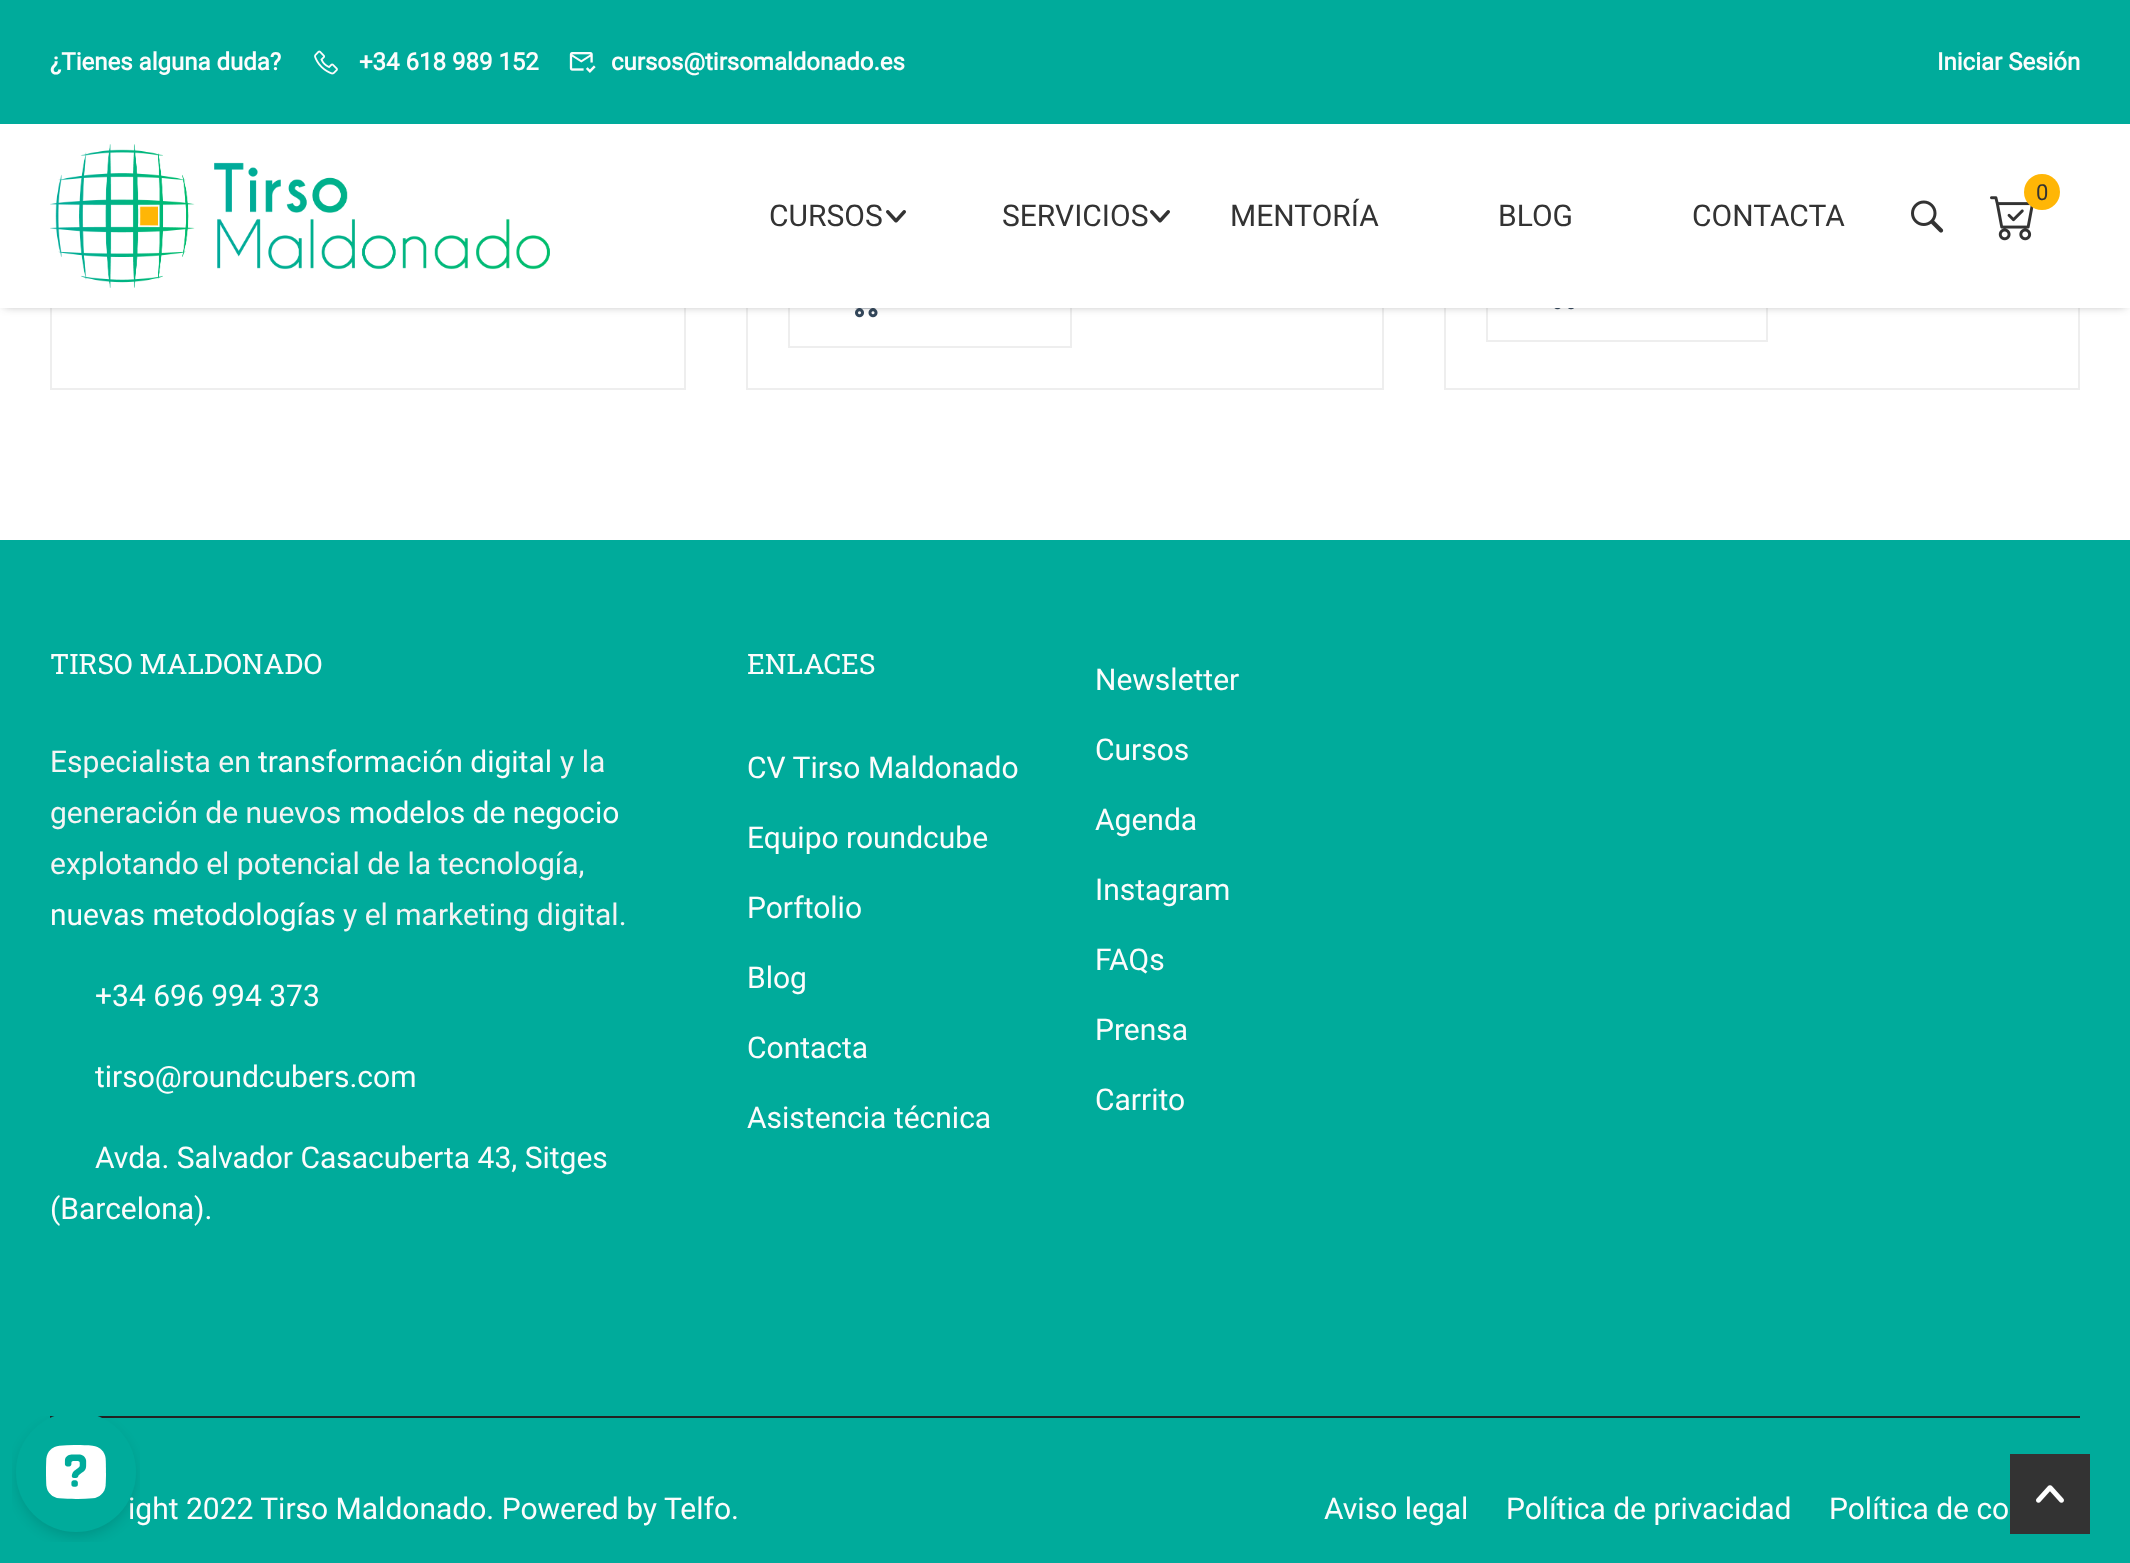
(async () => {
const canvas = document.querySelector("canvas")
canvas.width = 2130
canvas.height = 1563
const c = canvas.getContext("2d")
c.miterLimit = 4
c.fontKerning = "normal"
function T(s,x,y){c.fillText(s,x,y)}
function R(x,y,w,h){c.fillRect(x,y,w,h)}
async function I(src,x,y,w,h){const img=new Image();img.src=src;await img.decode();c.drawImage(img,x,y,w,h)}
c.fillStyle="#fff"
R(0,0,2130,1563)
c.strokeStyle="#eee"
c.lineWidth=2
c.strokeRect(51,-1,634,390)
c.strokeRect(747,-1,636,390)
c.strokeRect(789,261,282,86)
await I("7.png",855,308,23,10)
c.strokeRect(1445,-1,634,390)
c.strokeRect(1487,255,280,86)
await I("8.png",1554,308,20,2)
c.fillStyle="#2a2a2a66"
c.filter="blur(5px)"
c.beginPath()
c.rect(4,6,2122,300)
c.fill()
c.filter="none"
c.fillStyle="#fff"
R(0,124,2130,184)
c.fillStyle="#00ab9b"
R(0,0,2130,124)
c.font="bold 24px Roboto"
c.fillStyle="#fcfcfc"
T("¿Tienes alguna duda?",50,70)
await I("1.png",314,50,24,25)
T("+34 618 989 152",359,70)
await I("2.png",569,52,27,21)
T("cursos@tirsomaldonado.es",611,70)
T("Iniciar Sesión",1937,70)
await I("3.png",50,144,500,144)
await I("4.png",1990,196,44,45)
c.fillStyle="#ffb606"
c.beginPath()
c.arc(2042,192,18,0,7)
c.fill()
c.font="22px Roboto"
c.fillStyle="#333"
T("0",2036,200)
await I("5.png",1911,200,33,33)
c.font="30px Roboto"
T("CURSOS",769,226)
await I("6.png",886,210,20,13)
T("SERVICIOS",1002,226)
await I("6.png",1150,210,20,13)
T("MENTORÍA",1230,226)
T("BLOG",1498,226)
T("CONTACTA",1692,226)
c.fillStyle="#00ab9b"
R(0,540,2130,1023)
c.font="28px Roboto Slab"
c.fillStyle="#fcfcfc"
T("TIRSO MALDONADO",50,674)
c.font="30px Roboto"
c.fillStyle="#f4f4f4"
T("Especialista en",50,772)
c.fillStyle="#fcfcfc"
T("transformación digital",258,772)
c.fillStyle="#f4f4f4"
T("y la",560,772)
T("generación de nuevos",50,823)
c.fillStyle="#fcfcfc"
T("modelos de negocio",349,823)
c.fillStyle="#f4f4f4"
T("explotando el potencial de la tecnología,",50,874)
c.fillStyle="#fcfcfc"
T("nuevas metodologías",50,925)
c.fillStyle="#f4f4f4"
T("y el marketing digital.",343,925)
c.fillStyle="#fcfcfc"
T("+34 696 994 373",95,1006)
T("tirso@roundcubers.com",95,1087)
T("Avda. Salvador Casacuberta 43, Sitges",95,1168)
T("(Barcelona).",50,1219)
c.font="28px Roboto Slab"
T("ENLACES",747,674)
c.font="30px Roboto"
T("CV Tirso Maldonado",747,778)
T("Equipo roundcube",747,848)
T("Porftolio",747,918)
T("Blog",747,988)
T("Contacta",747,1058)
T("Asistencia técnica",747,1128)
T("Newsletter",1095,690)
T("Cursos",1095,760)
T("Agenda",1095,830)
T("Instagram",1095,900)
T("FAQs",1095,970)
T("Prensa",1095,1040)
T("Carrito",1095,1110)
c.fillStyle="#222"
R(50,1416,2030,2)
c.fillStyle="#fcfcfc"
T("ight 2022 Tirso Maldonado. Powered by Telfo.",128,1519)
T("Aviso legal",1324,1519)
T("Política de privacidad",1506,1519)
T("Política de co",1829,1519)
c.fillStyle="#333"
R(2010,1454,80,80)
await I("9.png",2036,1485,28,18)
await I("10.png",12,1416,128,126)
})()
